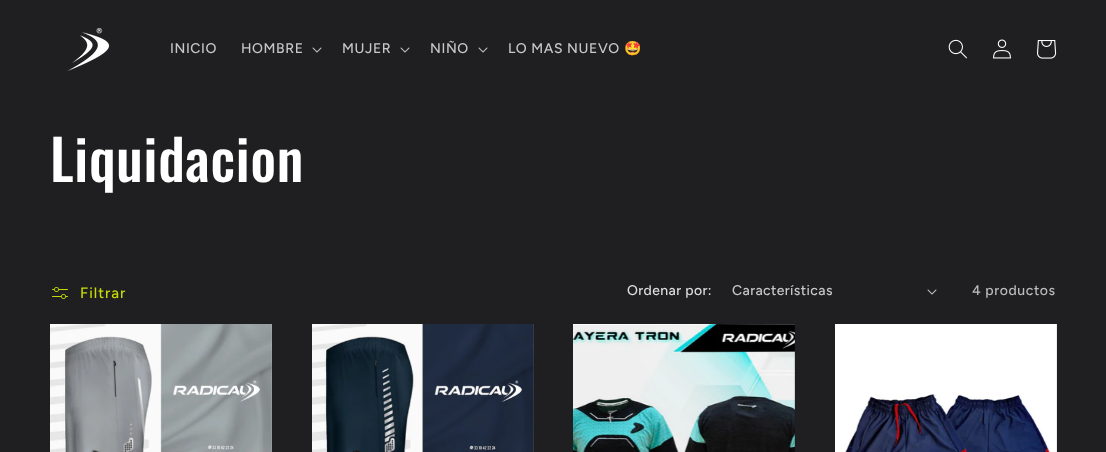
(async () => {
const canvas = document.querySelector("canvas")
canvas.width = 1106
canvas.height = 452
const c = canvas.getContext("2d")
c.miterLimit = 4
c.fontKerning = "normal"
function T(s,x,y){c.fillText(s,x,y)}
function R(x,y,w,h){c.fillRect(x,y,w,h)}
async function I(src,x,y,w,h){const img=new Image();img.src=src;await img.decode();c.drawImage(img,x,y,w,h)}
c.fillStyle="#1f1f21"
R(0,0,1106,452)
await I("1.png",67,28,43,43)
c.letterSpacing="0.6px"
c.font="500 14px Figtree"
c.fillStyle="#c7c7c8"
T("INICIO",170,53)
T("HOMBRE",241,53)
await I("2.png",312,47,10,6)
T("MUJER",342,53)
await I("2.png",400,47,10,6)
T("NIÑO",430,53)
await I("2.png",478,47,10,6)
T("LO MAS NUEVO",508,53)
c.font="14px Noto Color Emoji"
T("🤩",624,53)
await I("3.png",948,39,19,20)
await I("4.png",993,39,18,20)
await I("5.png",1037,40,20,19)
c.letterSpacing="0.75px"
c.font="500 56px Oswald"
c.fillStyle="#fff"
T("Liquidacion",50,182)
await I("6.png",52,287,16,12)
c.letterSpacing="1px"
c.font="500 15px Figtree"
c.fillStyle="#c6db07"
T("Filtrar",80,298)
c.letterSpacing="0.4px"
c.font="500 14px Figtree"
c.fillStyle="#ddddde"
T("Ordenar por:",627,295)
c.fillStyle="#c7c7c8"
T("Características",732,295)
await I("2.png",927,289,10,6)
c.letterSpacing="0.6px"
c.fillStyle="#bcbcbc"
T("4 productos",972,295)
await I("7.png",50,324,222,128)
await I("8.png",312,324,222,128)
await I("9.png",573,324,222,128)
await I("10.png",835,324,222,128)
})()
